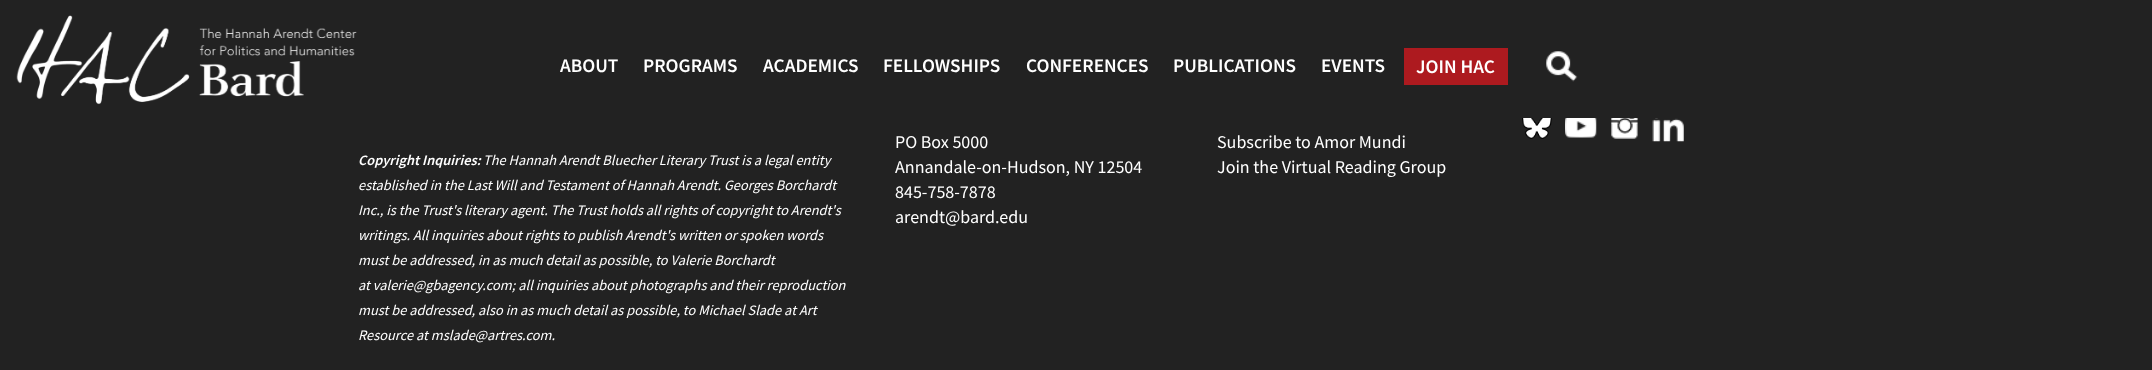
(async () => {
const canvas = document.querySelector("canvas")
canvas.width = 2152
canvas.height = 370
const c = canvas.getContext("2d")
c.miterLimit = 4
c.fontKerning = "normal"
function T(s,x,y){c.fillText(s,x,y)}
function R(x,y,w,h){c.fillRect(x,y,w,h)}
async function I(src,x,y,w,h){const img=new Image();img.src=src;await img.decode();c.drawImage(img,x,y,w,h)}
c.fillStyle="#222"
R(0,0,2152,370)
await I("1.png",16,15,341,90)
c.font="600 19.25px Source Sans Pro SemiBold"
c.fillStyle="#fff"
T("ABOUT",560,72)
T("PROGRAMS",643,72)
T("ACADEMICS",763,72)
T("FELLOWSHIPS",883,72)
T("CONFERENCES",1026,72)
T("PUBLICATIONS",1173,72)
T("EVENTS",1321,72)
c.fillStyle="#ad1a1f"
R(1404,48,104,37)
c.fillStyle="#fff"
T("JOIN HAC",1416,73)
await I("2.png",1546,51,32,31)
c.font="italic 600 14.4px Source Sans Pro SemiBold"
T("Copyright Inquiries:",358,165)
c.font="italic 14.4px Source Sans Pro"
T("The Hannah Arendt Bluecher Literary Trust is a legal entity",483,165)
T("established in the Last Will and Testament of Hannah Arendt. Georges Borchardt",358,190)
T("Inc., is the Trust's literary agent. The Trust holds all rights of copyright to Arendt's",358,215)
T("writings. All inquiries about rights to publish Arendt's written or spoken words",358,240)
T("must be addressed, in as much detail as possible, to Valerie Borchardt",358,265)
T("at valerie@gbagency.com; all inquiries about photographs and their reproduction",358,290)
T("must be addressed, also in as much detail as possible, to Michael Slade at Art",358,315)
T("Resource at mslade@artres.com.",358,340)
await I("3.png",1522,118,30,21)
await I("4.png",1565,118,32,20)
await I("5.png",1611,118,27,21)
await I("6.png",1652,118,32,24)
c.font="18px Source Sans Pro"
T("PO Box 5000",895,148)
T("Annandale-on-Hudson, NY 12504",895,173)
T("845-758-7878",895,198)
T("arendt@bard.edu",895,223)
T("Subscribe to Amor Mundi",1217,148)
T("Join the Virtual Reading Group",1217,173)
})()
